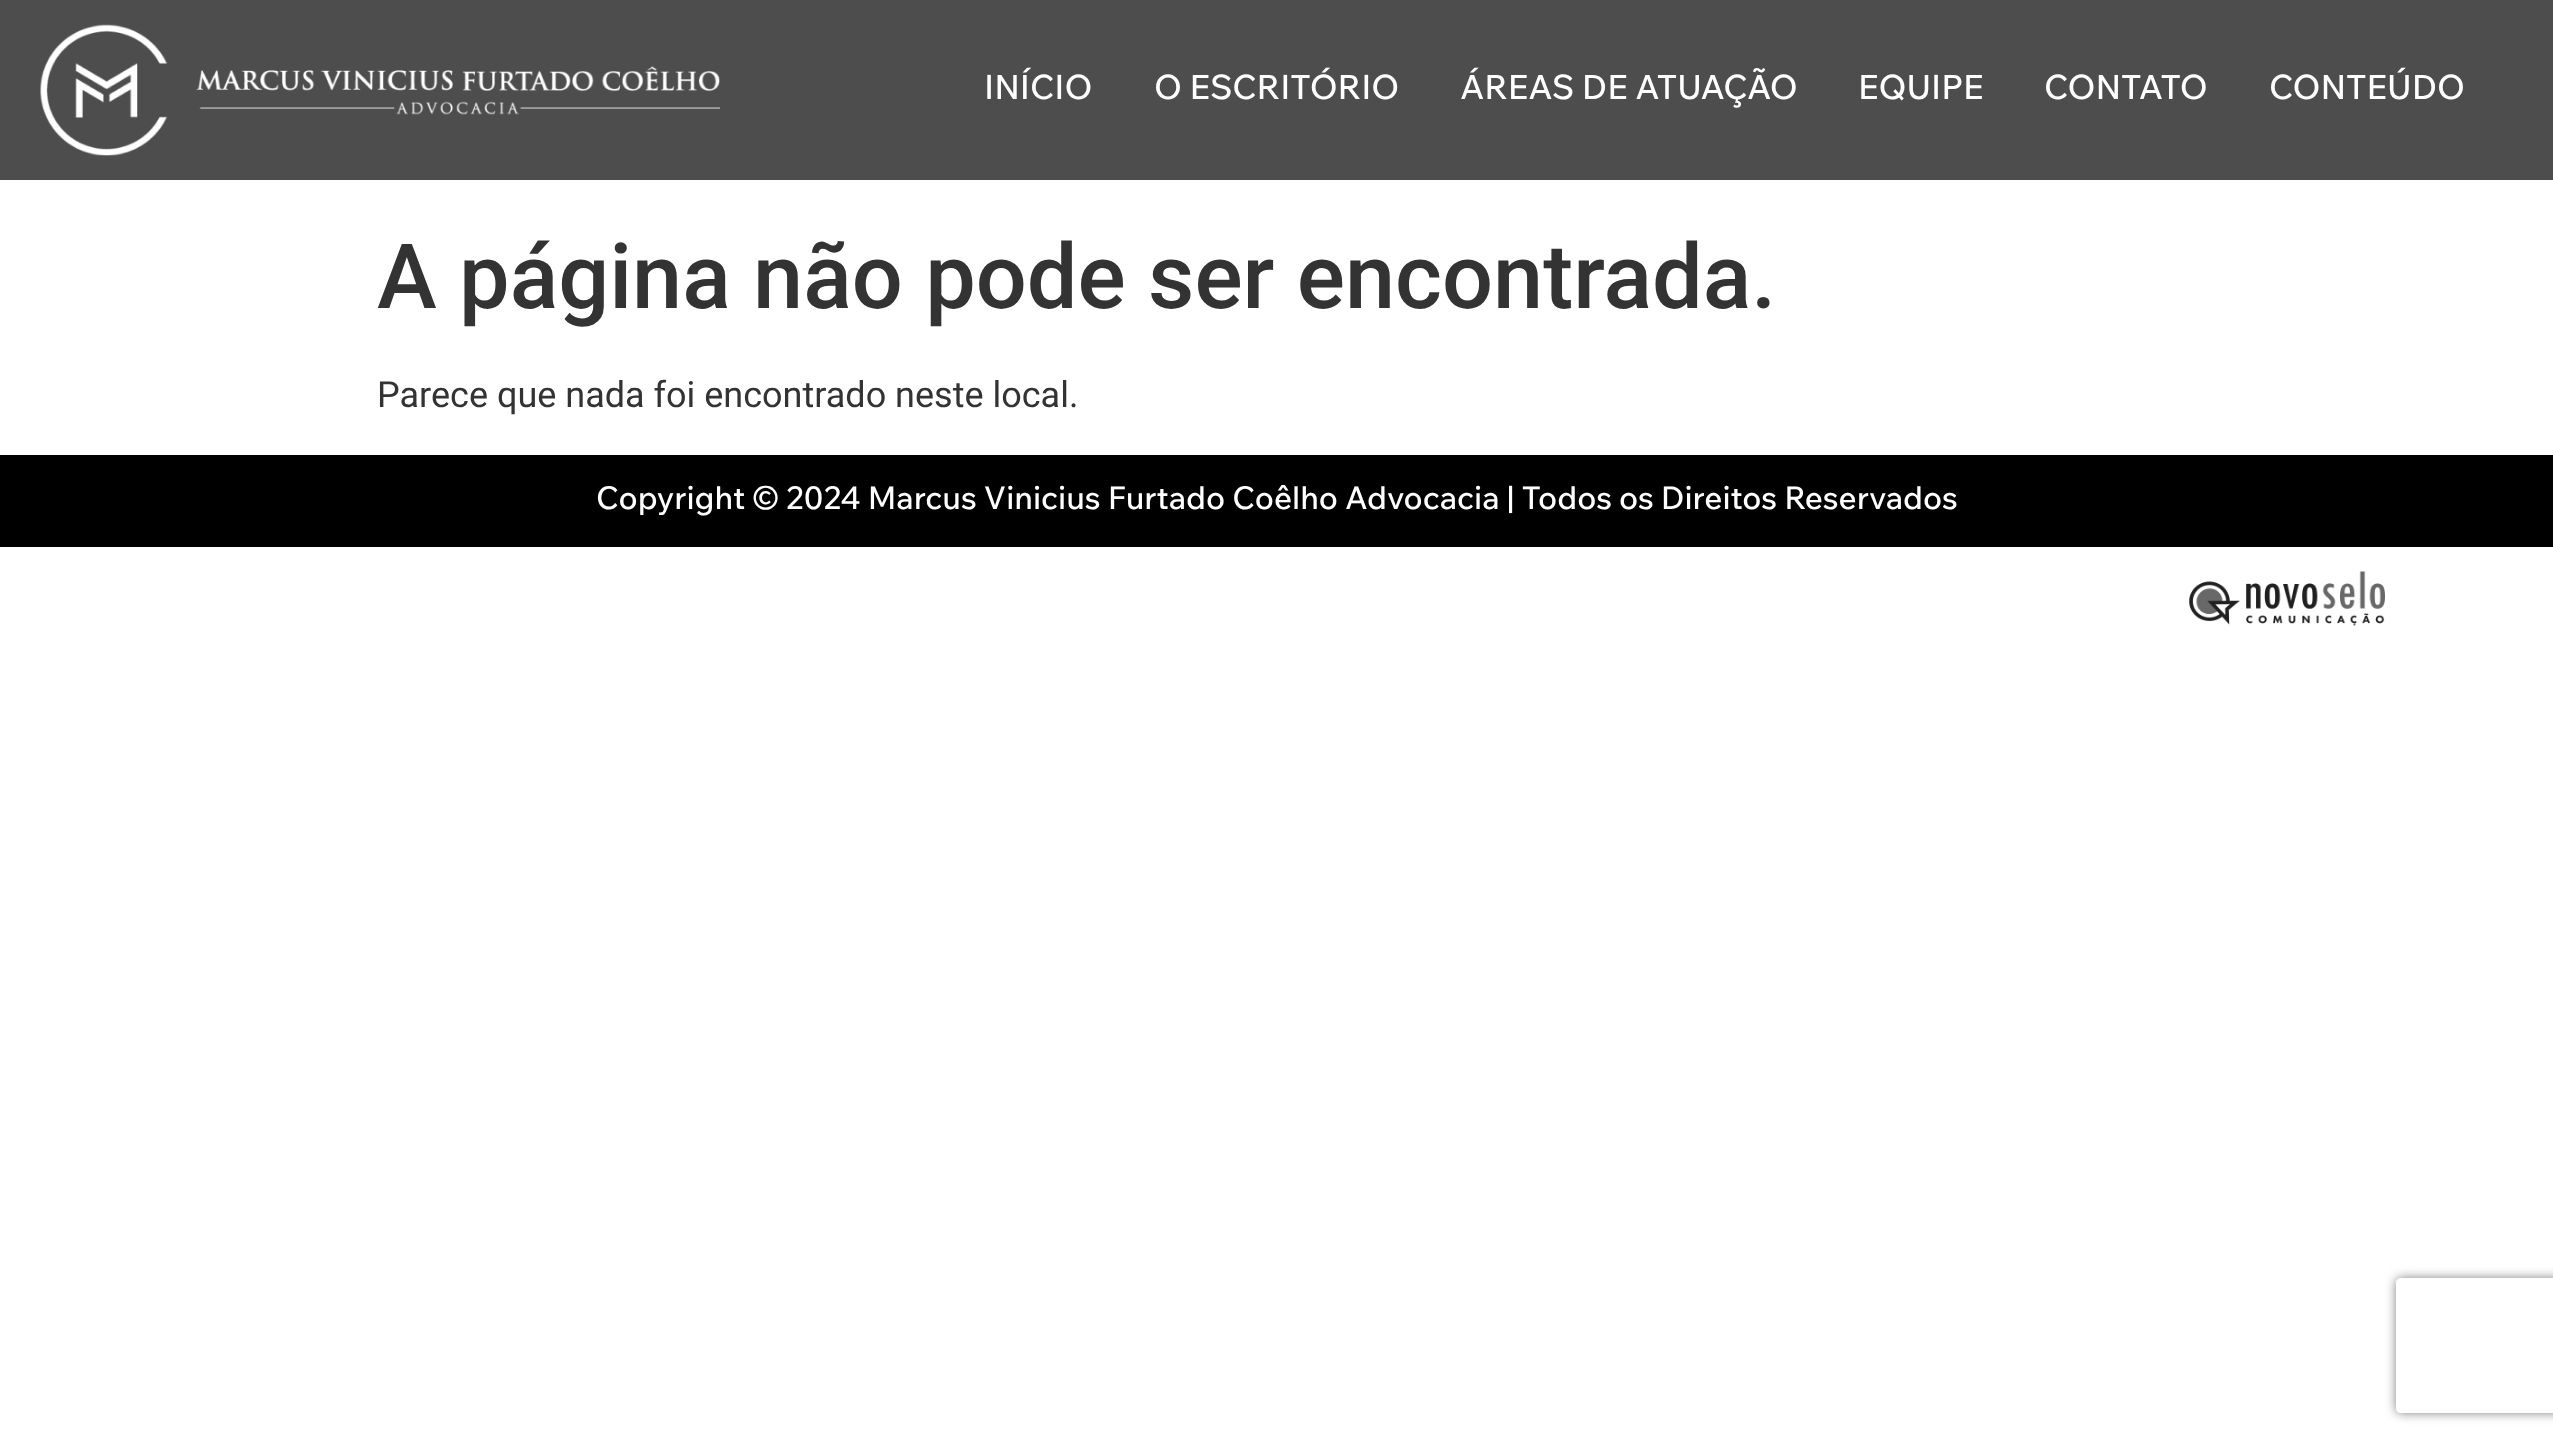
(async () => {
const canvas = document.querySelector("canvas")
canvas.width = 2553
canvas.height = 1444
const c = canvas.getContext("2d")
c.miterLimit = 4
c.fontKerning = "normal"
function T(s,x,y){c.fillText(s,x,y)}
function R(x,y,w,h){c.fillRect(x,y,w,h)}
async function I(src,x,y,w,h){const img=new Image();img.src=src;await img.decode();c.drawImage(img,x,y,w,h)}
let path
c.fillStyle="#fff"
R(0,0,2553,1444)
c.fillStyle="#4d4d4d"
R(0,0,2553,180)
await I("1.png",40,24,680,132)
c.font="500 33.75px Wix Madefor Text"
c.fillStyle="#fff"
T("INÍCIO",984,99)
T("O ESCRITÓRIO",1154,99)
T("ÁREAS DE ATUAÇÃO",1460,99)
T("EQUIPE",1858,99)
T("CONTATO",2044,99)
T("CONTEÚDO",2269,99)
c.font="500 90px Roboto"
c.fillStyle="#333"
T("A página não pode ser encontrada.",377,308)
c.font="36px Roboto"
T("Parece que nada foi encontrado neste local.",377,407)
c.fillStyle="#000"
R(0,455,2553,92)
c.font="500 31.5px Wix Madefor Text"
c.fillStyle="#fff"
T("Copyright © 2024 Marcus Vinicius Furtado Coêlho Advocacia | Todos os Direitos Reservados",596,509)
await I("2.png",2189,571,196,55)
c.save()
path = new Path2D("M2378 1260h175v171h-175zm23 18h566c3 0 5 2 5 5v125c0 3-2 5-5 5h-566c-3 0-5-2-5-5v-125c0-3 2-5 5-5z")
c.clip(path,"evenodd")
c.fillStyle="#808080"
c.filter="blur(5.5px)"
c.beginPath()
c.roundRect(2396,1278,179,135,5)
c.fill()
c.filter="none"
c.restore()
})()
